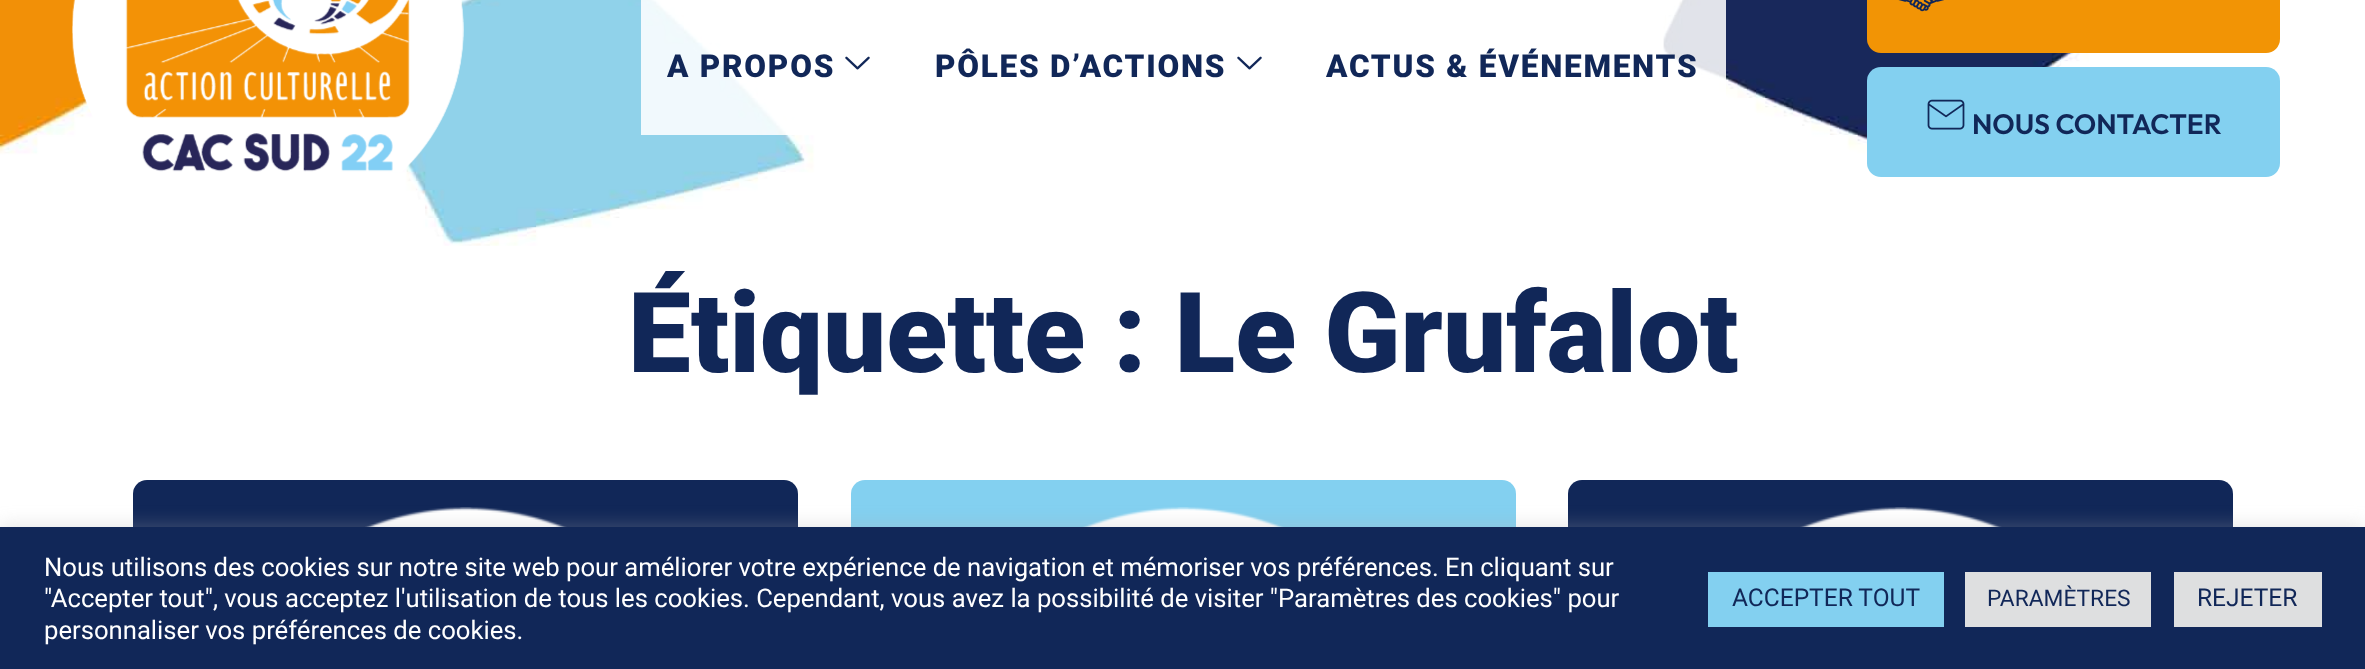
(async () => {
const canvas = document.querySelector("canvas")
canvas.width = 2365
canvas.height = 669
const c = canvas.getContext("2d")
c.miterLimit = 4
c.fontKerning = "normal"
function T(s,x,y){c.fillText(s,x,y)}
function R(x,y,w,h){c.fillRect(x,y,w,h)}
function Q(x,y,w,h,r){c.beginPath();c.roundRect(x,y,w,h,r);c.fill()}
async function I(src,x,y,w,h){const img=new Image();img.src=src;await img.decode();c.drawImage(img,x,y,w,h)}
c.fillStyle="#fff"
R(0,0,2365,669)
await I("1.png",0,0,2108,246)
await I("2.png",72,0,392,172)
c.fillStyle="#ffffffde"
R(641,0,1085,135)
c.letterSpacing="1.75px"
c.font="900 31.5px Roboto"
c.fillStyle="#112758"
T("A PROPOS",667,77)
await I("3.png",845,56,25,14)
T("PÔLES D’ACTIONS",935,77)
await I("3.png",1237,56,25,14)
T("ACTUS & ÉVÉNEMENTS",1326,77)
c.fillStyle="#f29405"
Q(1867,-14,413,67,14)
await I("4.png",1898,0,46,12)
c.fillStyle="#83d0f0"
Q(1867,67,413,110,14)
await I("5.png",1927,99,38,31)
c.letterSpacing="0px"
c.font="600 28px Outfit"
c.fillStyle="#112758"
T("NOUS CONTACTER",1972,134)
c.font="900 112px Roboto"
T("Étiquette : Le Grufalot",628,372)
Q(133,480,665,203,14)
await I("6.png",365,507,202,20)
c.fillStyle="#83d0f0"
Q(851,480,665,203,14)
await I("7.png",1082,507,202,20)
c.fillStyle="#112758"
Q(1568,480,665,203,14)
await I("8.png",1800,507,202,20)
c.fillStyle="#acabab4d"
c.filter="blur(9px)"
c.beginPath()
c.rect(0,525,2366,144)
c.fill()
c.filter="none"
c.fillStyle="#112758"
R(0,527,2365,142)
c.font="25.67px Roboto"
c.fillStyle="#fff"
T("Nous utilisons des cookies sur notre site web pour améliorer votre expérience de navigation et mémoriser vos préférences. En cliquant sur",44,576)
T("\"Accepter tout\", vous acceptez l'utilisation de tous les cookies. Cependant, vous avez la possibilité de visiter \"Paramètres des cookies\" pour",44,607)
T("personnaliser vos préférences de cookies.",44,639)
c.fillStyle="#83d0f0"
R(1708,572,236,55)
c.font="24.5px Roboto"
c.fillStyle="#112758"
T("ACCEPTER TOUT",1732,606)
c.fillStyle="#dedfe0"
R(1965,572,186,55)
c.font="22.75px Roboto"
c.fillStyle="#112758"
T("PARAMÈTRES",1987,606)
c.fillStyle="#dedfe0"
R(2174,572,148,55)
c.font="24.5px Roboto"
c.fillStyle="#112758"
T("REJETER",2197,606)
})()
